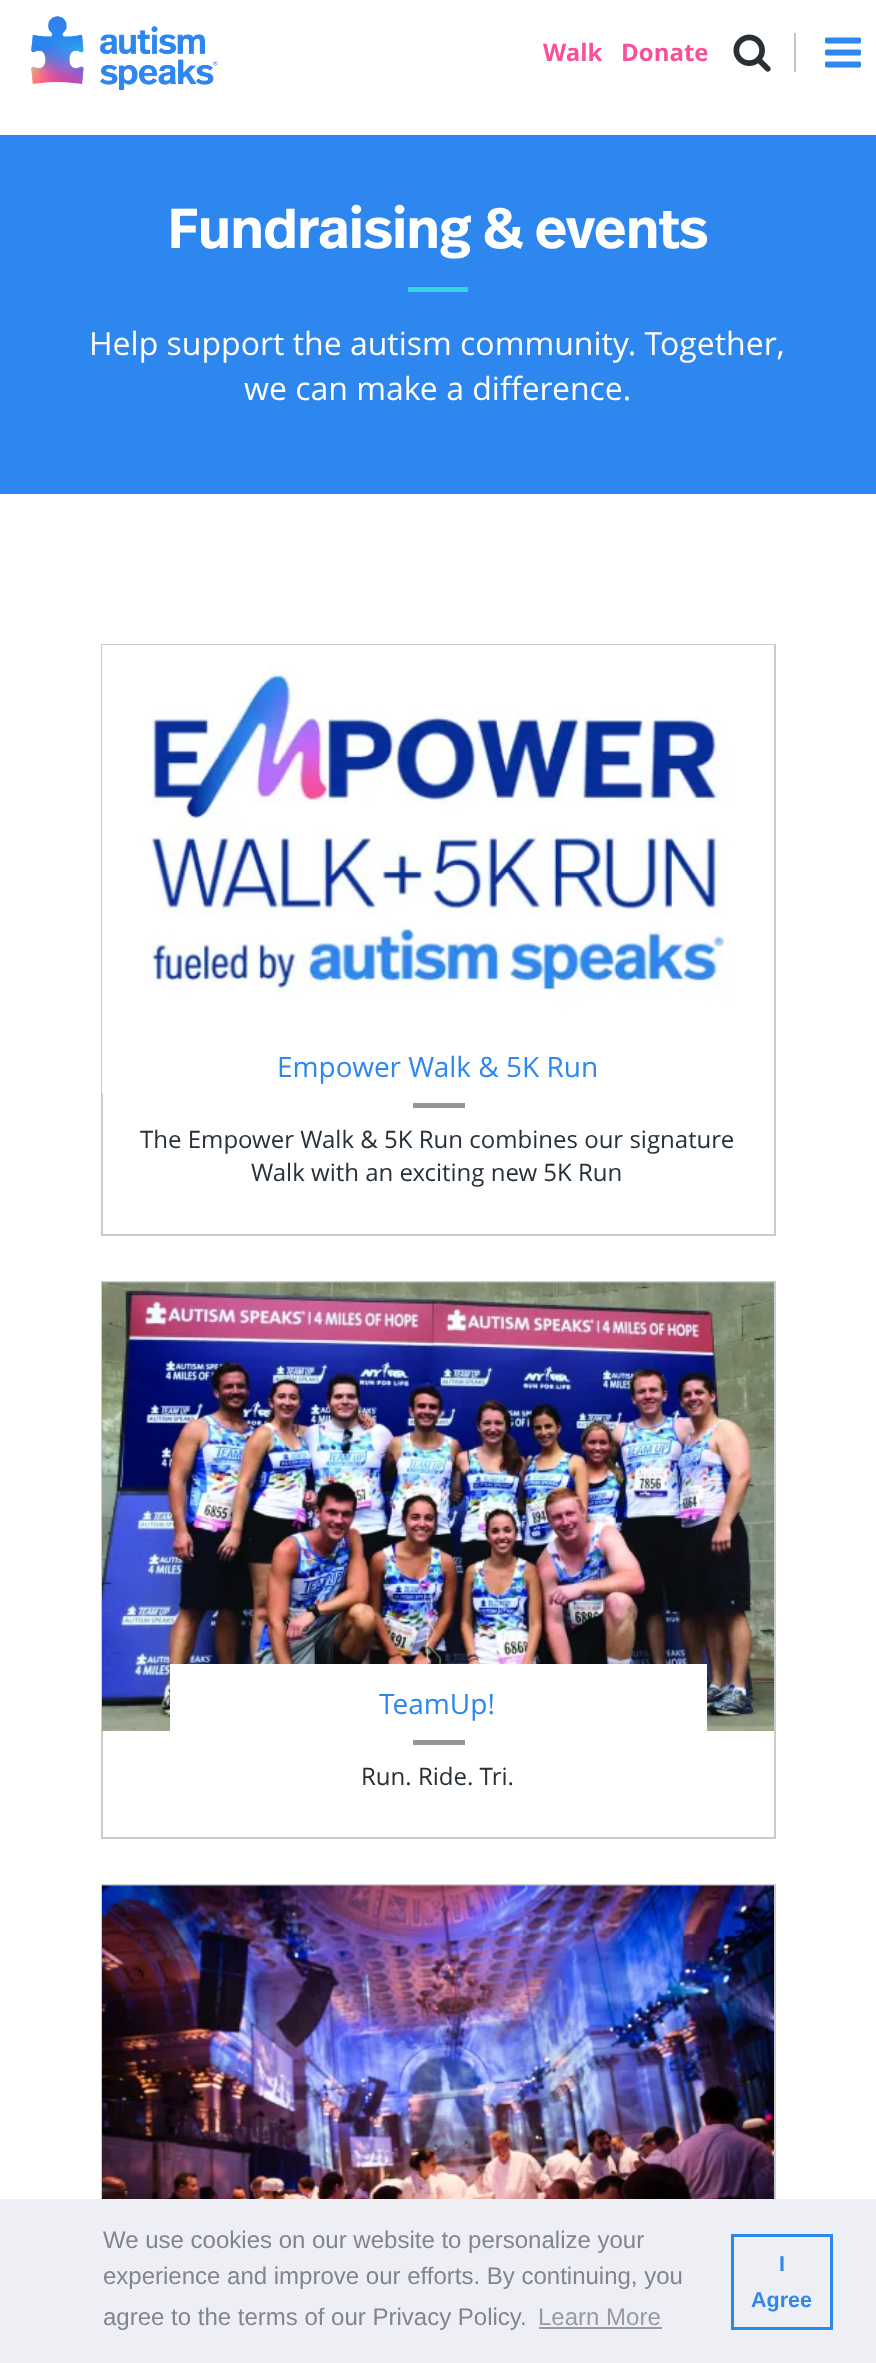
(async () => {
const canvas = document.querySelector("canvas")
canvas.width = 876
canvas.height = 2363
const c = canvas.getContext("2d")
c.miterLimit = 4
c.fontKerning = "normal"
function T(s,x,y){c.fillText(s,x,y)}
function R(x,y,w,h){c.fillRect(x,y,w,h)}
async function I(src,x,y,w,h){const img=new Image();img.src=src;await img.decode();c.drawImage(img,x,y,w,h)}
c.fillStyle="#fff"
R(0,0,876,2363)
await I("1.png",31,16,187,74)
c.font="bold 24px Open Sans"
c.fillStyle="#f74f9c"
T("Walk",543,61)
T("Donate",621,61)
c.fillStyle="#c6c6c6"
R(794,33,2,39)
await I("2.png",733,34,38,38)
await I("3.png",825,37,36,31)
c.fillStyle="#2e86ef"
R(0,135,876,359)
c.font="600 56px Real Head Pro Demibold"
c.fillStyle="#fff"
T("Fundraising & events",168,248)
c.fillStyle="#33d6e2"
R(408,287,60,5)
c.font="32px Open Sans"
c.fillStyle="#fff"
T("Help support the autism community. Together,",89,355)
T("we can make a difference.",244,400)
c.strokeStyle="#c9cbcd"
c.lineWidth=2
c.strokeRect(102,645,673,590)
await I("4.png",102,645,672,449)
c.font="28px Open Sans"
c.fillStyle="#2e86ef"
T("Empower Walk & 5K Run",277,1077)
c.fillStyle="#93979a"
R(413,1103,52,5)
c.font="24px Open Sans"
c.fillStyle="#272f37"
T("The Empower Walk & 5K Run combines our signature",140,1148)
T("Walk with an exciting new 5K Run",251,1181)
c.strokeRect(102,1282,673,556)
await I("5.png",102,1282,672,449)
c.fillStyle="#fff"
R(170,1664,537,67)
c.font="28px Open Sans"
c.fillStyle="#2e86ef"
T("TeamUp!",379,1714)
c.fillStyle="#93979a"
R(413,1740,52,5)
c.font="24px Open Sans"
c.fillStyle="#272f37"
T("Run. Ride. Tri.",361,1785)
c.strokeRect(102,1885,673,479)
await I("6.png",102,1885,672,314)
c.fillStyle="#edeff5"
R(0,2199,876,164)
c.font="24px Liberation Sans"
c.fillStyle="#838391"
T("We use cookies on our website to personalize your",103,2248)
T("experience and improve our efforts. By continuing, you",103,2284)
T("agree to the terms of our Privacy Policy.",103,2325)
c.fillStyle="#9899a5"
T("Learn More",538,2325)
R(539,2327,123,2)
c.strokeStyle="#2e86ef"
c.lineWidth=3
c.strokeRect(732.5,2235.5,99,93)
c.font="bold 21.5px Liberation Sans"
c.fillStyle="#2e86ef"
T("I",779,2271)
T("Agree",751,2307)
})()
